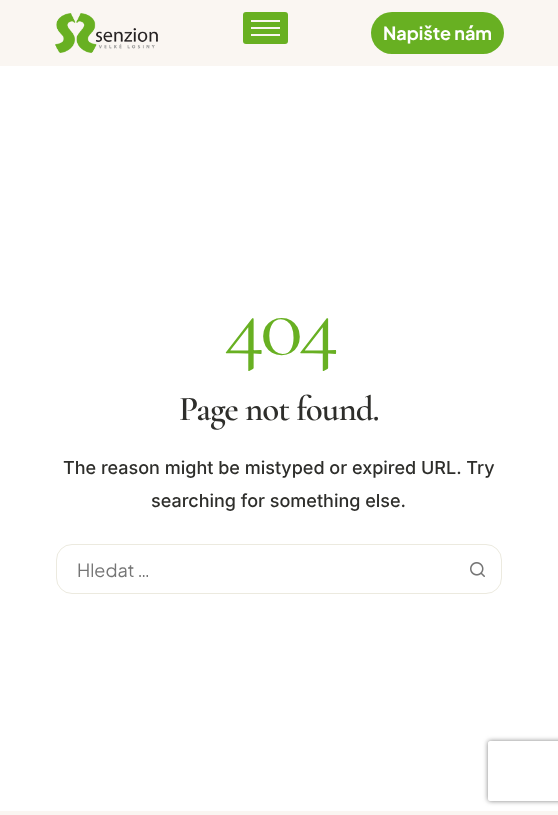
(async () => {
const canvas = document.querySelector("canvas")
canvas.width = 558
canvas.height = 815
const c = canvas.getContext("2d")
c.miterLimit = 4
c.fontKerning = "normal"
function T(s,x,y){c.fillText(s,x,y)}
function R(x,y,w,h){c.fillRect(x,y,w,h)}
function Q(x,y,w,h,r){c.beginPath();c.roundRect(x,y,w,h,r);c.fill()}
async function I(src,x,y,w,h){const img=new Image();img.src=src;await img.decode();c.drawImage(img,x,y,w,h)}
let path
c.fillStyle="#fff"
R(0,0,558,815)
c.fillStyle="#faf6f2"
R(0,0,558,66)
await I("1.png",55,13,103,40)
c.fillStyle="#68b022"
Q(243,12,45,32,3)
c.fillStyle="#faf6f2"
R(251,20,29,2)
R(251,27,29,2)
R(251,34,29,2)
c.fillStyle="#68b022"
Q(371,12,133,42,21)
c.font="bold 18px Plus Jakarta Sans"
c.fillStyle="#fff"
T("Napište nám",383,40)
c.letterSpacing="-4.5px"
c.font="90px Cormorant Garamond"
c.fillStyle="#68b022"
T("404",224,354)
c.letterSpacing="-1px"
c.font="600 35px Cormorant Garamond"
c.fillStyle="#2e2e2b"
T("Page not found.",179,420)
c.letterSpacing="0px"
c.font="500 18px Inter"
T("The reason might be mistyped or expired URL. Try",63,474)
T("searching for something else.",151,507)
c.beginPath()
c.roundRect(56.5,544.5,445,49,15.5)
c.strokeStyle="#eceadf"
c.stroke()
c.font="18px Plus Jakarta Sans"
c.fillStyle="#757575"
T("Hledat …",77,577)
await I("2.png",470,562,15,15)
c.fillStyle="#faf6f2"
R(0,811,558,4)
c.save()
path = new Path2D("M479 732h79v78h-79zm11 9h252c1 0 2 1 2 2v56c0 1-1 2-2 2h-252c-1 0-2-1-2-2v-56c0-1 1-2 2-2z")
c.clip(path,"evenodd")
c.fillStyle="#808080"
c.filter="blur(2.5px)"
c.beginPath()
c.roundRect(488,741,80,60,2)
c.fill()
c.filter="none"
c.restore()
})()
